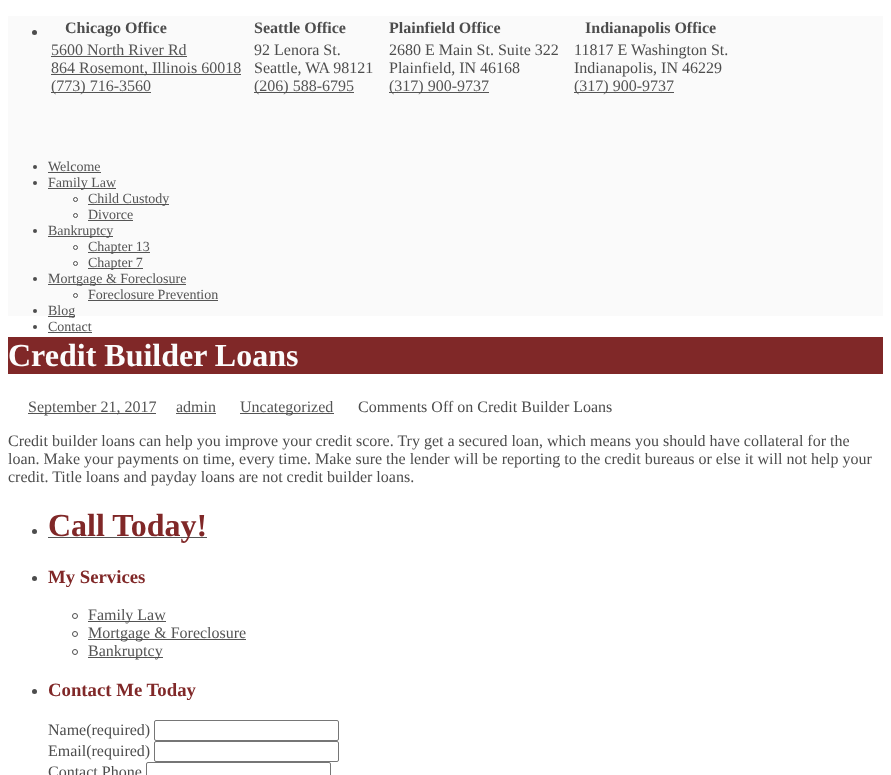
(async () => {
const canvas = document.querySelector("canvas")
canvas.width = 891
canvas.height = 775
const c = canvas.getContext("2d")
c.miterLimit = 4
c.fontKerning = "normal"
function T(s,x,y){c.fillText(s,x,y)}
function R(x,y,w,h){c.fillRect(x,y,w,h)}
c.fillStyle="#fff"
R(0,0,891,775)
c.fillStyle="#fafafa"
R(8,16,875,300)
c.fillStyle="#4d4d4d"
c.beginPath()
c.arc(34.5,32.5,2.5,0,7)
c.fill()
c.font="bold 16px Liberation Serif"
T("Chicago Office",65,33)
T("Seattle Office",254,33)
T("Plainfield Office",389,33)
T("Indianapolis Office",585,33)
c.font="16px Liberation Serif"
c.fillStyle="#545454"
T("5600 North River Rd",51,55)
R(51,56,136,1)
R(51,74,190,1)
T("864 Rosemont, Illinois 60018",51,73)
R(51,92,100,1)
T("(773) 716-3560",51,91)
c.fillStyle="#4d4d4d"
T("92 Lenora St.",254,55)
T("Seattle, WA 98121",254,73)
c.fillStyle="#545454"
R(254,92,100,1)
T("(206) 588-6795",254,91)
c.fillStyle="#4d4d4d"
T("2680 E Main St. Suite 322",389,55)
T("Plainfield, IN 46168",389,73)
c.fillStyle="#545454"
R(389,92,100,1)
T("(317) 900-9737",389,91)
c.fillStyle="#4d4d4d"
T("11817 E Washington St.",574,55)
T("Indianapolis, IN 46229",574,73)
c.fillStyle="#545454"
R(574,92,100,1)
T("(317) 900-9737",574,91)
c.fillStyle="#4d4d4d"
c.beginPath()
c.arc(35,167,2,0,7)
c.fill()
c.font="14px Liberation Serif"
c.fillStyle="#545454"
T("Welcome",48,171)
R(48,172,53,1)
c.fillStyle="#4d4d4d"
c.beginPath()
c.arc(35,183,2,0,7)
c.fill()
c.fillStyle="#545454"
R(48,188,68,1)
T("Family Law",48,187)
c.beginPath()
c.arc(75.5,199.5,2,0,7)
c.strokeStyle="#4d4d4d"
c.stroke()
c.fillStyle="#555"
R(88,204,81,1)
c.fillStyle="#545454"
T("Child Custody",88,203)
c.beginPath()
c.arc(75.5,215.5,2,0,7)
c.stroke()
T("Divorce",88,219)
c.fillStyle="#555"
R(88,220,45,1)
c.fillStyle="#4d4d4d"
c.beginPath()
c.arc(35,231,2,0,7)
c.fill()
c.fillStyle="#545454"
R(48,236,65,1)
T("Bankruptcy",48,235)
c.beginPath()
c.arc(75.5,247.5,2,0,7)
c.stroke()
c.fillStyle="#555"
R(88,252,62,1)
c.fillStyle="#545454"
T("Chapter 13",88,251)
c.beginPath()
c.arc(75.5,263.5,2,0,7)
c.stroke()
c.fillStyle="#555"
R(88,268,55,1)
c.fillStyle="#545454"
T("Chapter 7",88,267)
c.fillStyle="#4d4d4d"
c.beginPath()
c.arc(35,279,2,0,7)
c.fill()
c.fillStyle="#545454"
R(48,284,138,1)
T("Mortgage & Foreclosure",48,283)
c.beginPath()
c.arc(75.5,295.5,2,0,7)
c.stroke()
T("Foreclosure Prevention",88,299)
c.fillStyle="#555"
R(88,300,130,1)
c.fillStyle="#4d4d4d"
c.beginPath()
c.arc(35,311,2,0,7)
c.fill()
c.fillStyle="#545454"
R(48,316,27,1)
T("Blog",48,315)
c.fillStyle="#4d4d4d"
c.beginPath()
c.arc(35,327,2,0,7)
c.fill()
c.fillStyle="#545454"
T("Contact",48,331)
R(48,332,44,1)
c.fillStyle="#802828"
R(8,337,875,37)
c.font="bold 32px Liberation Serif"
c.fillStyle="#fcfcfc"
T("Credit Builder Loans",8,366)
c.fillStyle="#545454"
R(28,413,128,1)
c.font="16px Liberation Serif"
T("September 21, 2017",28,412)
T("admin",176,412)
R(176,413,40,1)
R(240,413,94,1)
T("Uncategorized",240,412)
c.fillStyle="#4d4d4d"
T("Comments Off on Credit Builder Loans",358,412)
T("Credit builder loans can help you improve your credit score. Try get a secured loan, which means you should have collateral for the",8,446)
T("loan. Make your payments on time, every time. Make sure the lender will be reporting to the credit bureaus or else it will not help your",8,464)
T("credit. Title loans and payday loans are not credit builder loans.",8,482)
c.beginPath()
c.arc(34.5,531.5,2.5,0,7)
c.fill()
c.fillStyle="#545454"
R(48,537,159,1)
c.font="bold 32px Liberation Serif"
c.fillStyle="#802828"
T("Call Today!",48,536)
c.fillStyle="#4d4d4d"
c.beginPath()
c.arc(34.5,578.5,2.5,0,7)
c.fill()
c.font="bold 18.75px Liberation Serif"
c.fillStyle="#802828"
T("My Services",48,583)
c.beginPath()
c.arc(75,616,2.5,0,7)
c.stroke()
c.fillStyle="#545454"
R(88,621,78,1)
c.font="16px Liberation Serif"
T("Family Law",88,620)
c.beginPath()
c.arc(75,634,2.5,0,7)
c.stroke()
R(88,639,158,1)
T("Mortgage & Foreclosure",88,638)
c.beginPath()
c.arc(75,652,2.5,0,7)
c.stroke()
R(88,657,75,1)
T("Bankruptcy",88,656)
c.fillStyle="#4d4d4d"
c.beginPath()
c.arc(34.5,691.5,2.5,0,7)
c.fill()
c.font="bold 18.75px Liberation Serif"
c.fillStyle="#802828"
T("Contact Me Today",48,696)
c.font="16px Liberation Serif"
c.fillStyle="#4d4d4d"
T("Name(required)",48,735)
c.beginPath()
c.roundRect(154.5,720.5,184,20,1.5)
c.strokeStyle="#767676"
c.stroke()
T("Email(required)",48,756)
c.beginPath()
c.roundRect(154.5,741.5,184,20,1.5)
c.stroke()
T("Contact Phone",48,777)
c.beginPath()
c.roundRect(146.5,762.5,184,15,1.5)
c.stroke()
})()
